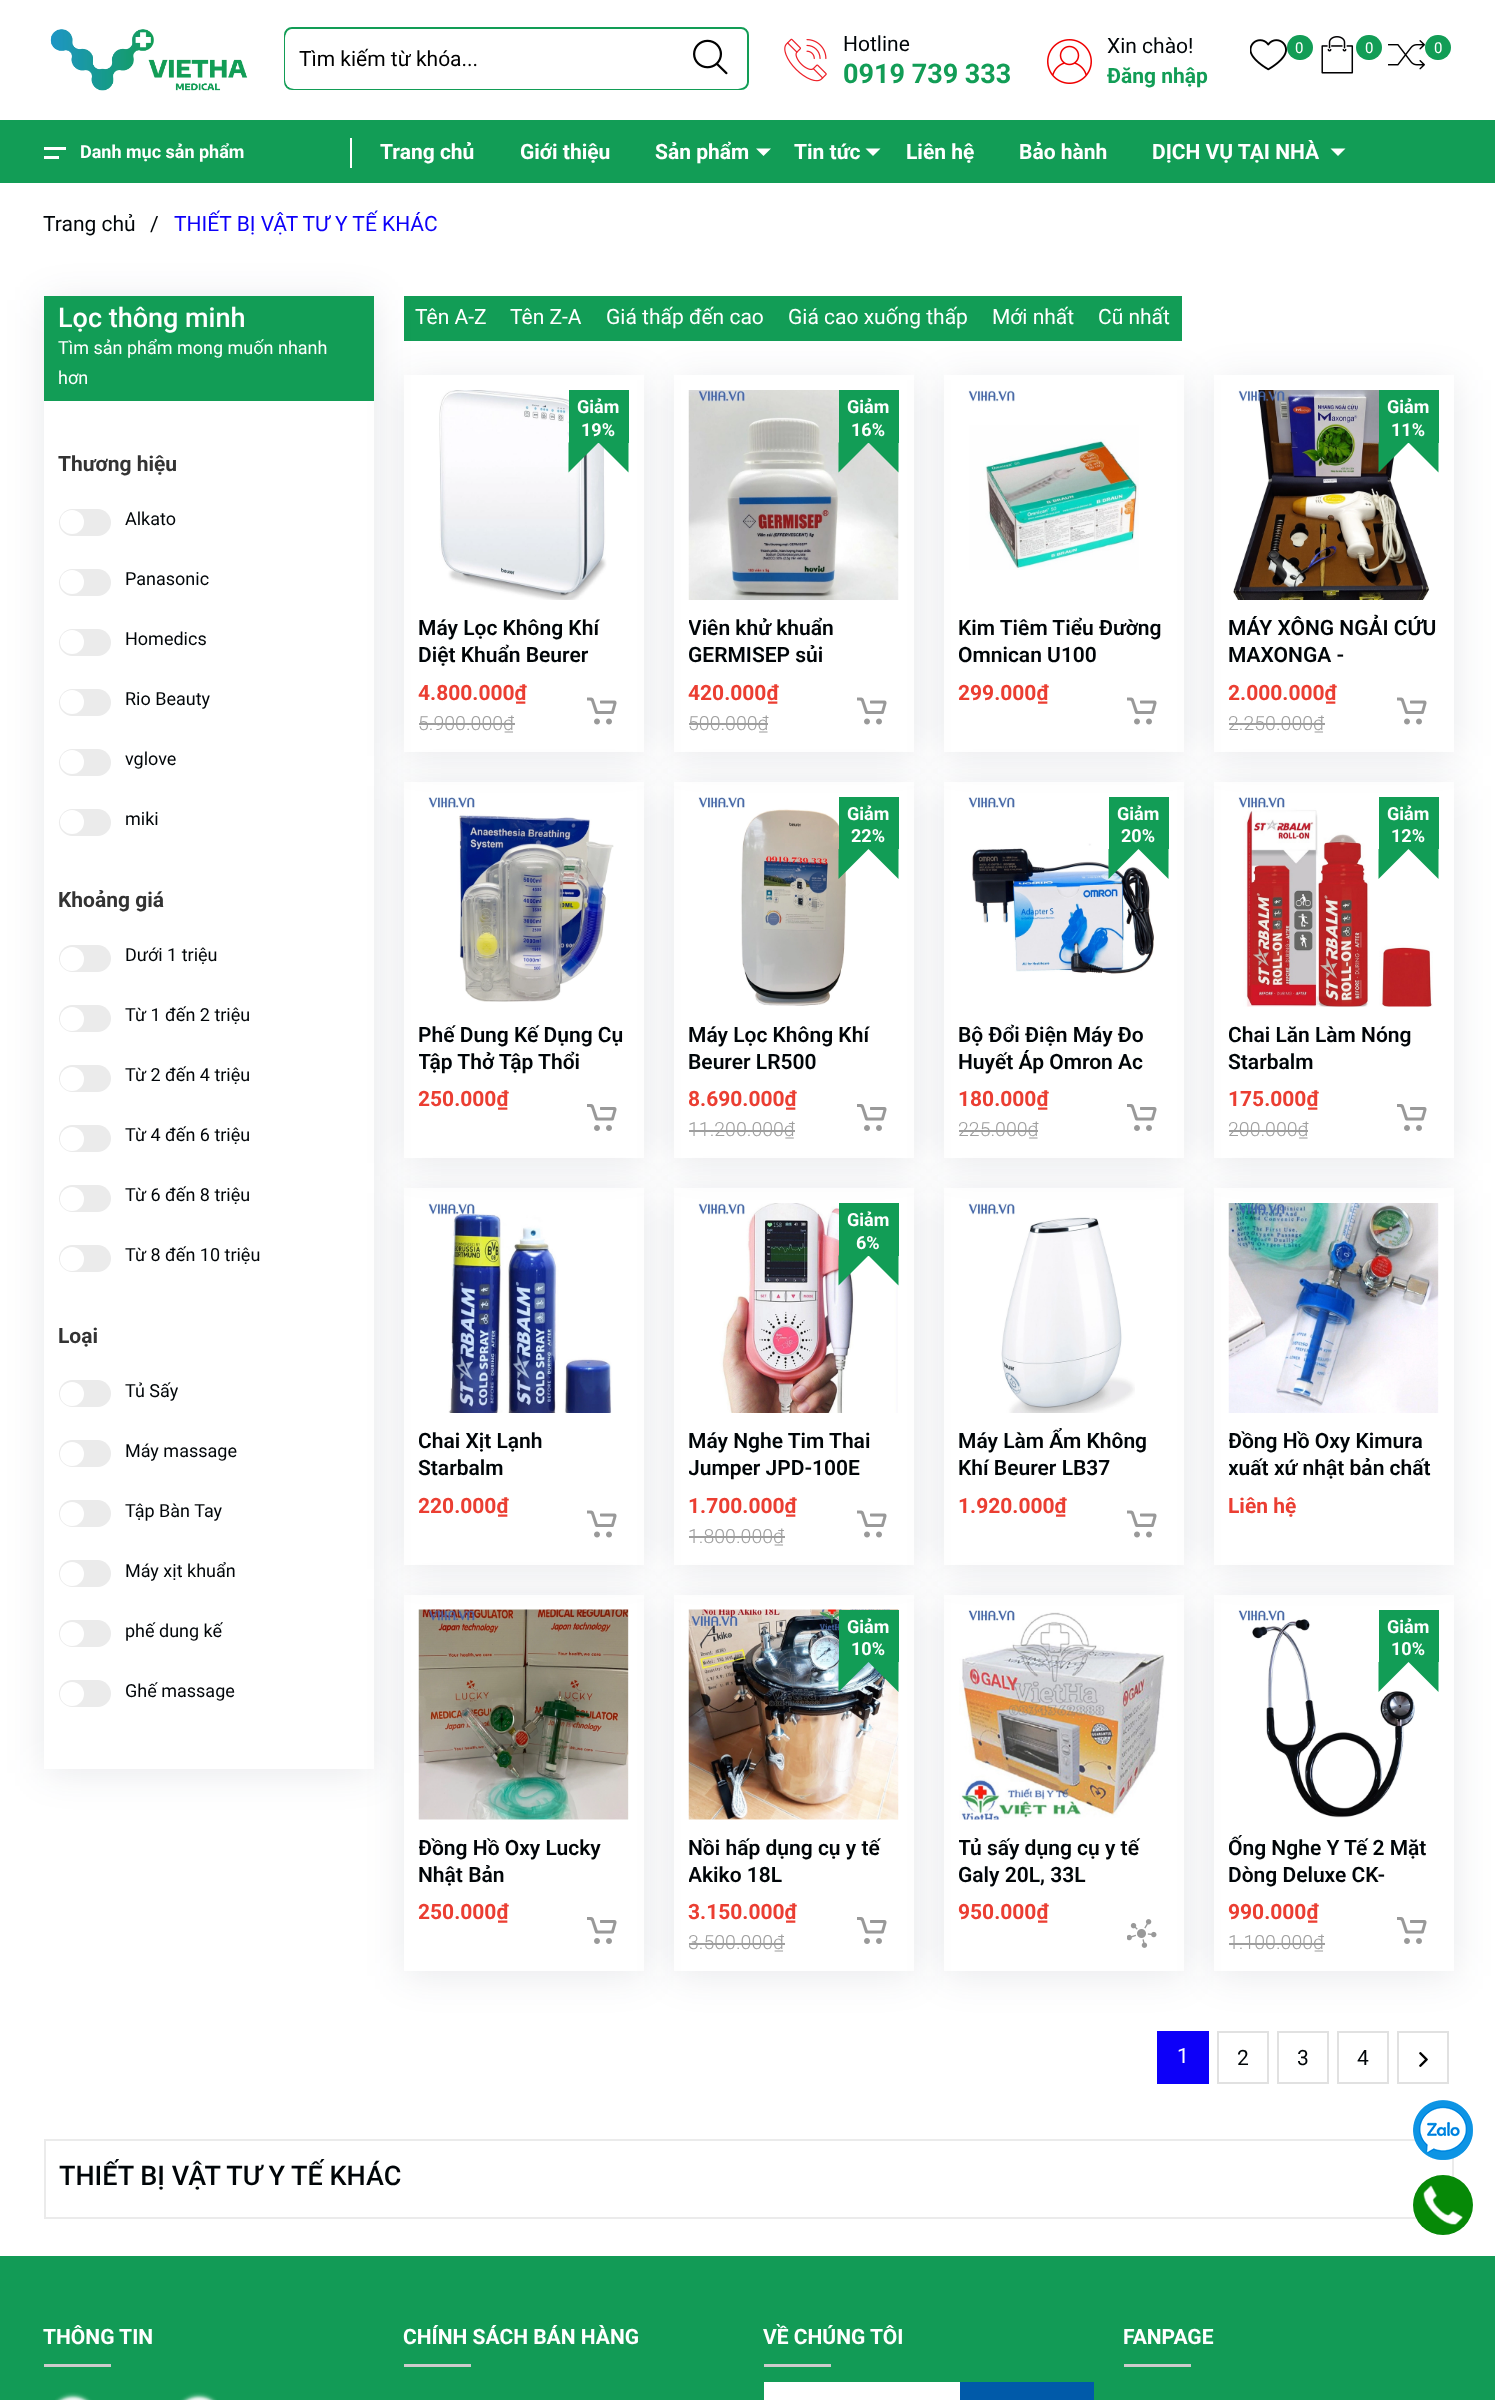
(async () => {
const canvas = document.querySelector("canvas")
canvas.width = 1495
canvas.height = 2400
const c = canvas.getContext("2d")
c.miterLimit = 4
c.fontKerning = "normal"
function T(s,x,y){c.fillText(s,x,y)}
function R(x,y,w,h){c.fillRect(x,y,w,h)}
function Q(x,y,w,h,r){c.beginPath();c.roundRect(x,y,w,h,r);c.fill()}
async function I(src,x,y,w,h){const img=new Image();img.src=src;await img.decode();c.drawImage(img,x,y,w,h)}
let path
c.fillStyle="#fff"
R(0,0,1495,2400)
await I("1.png",50,29,198,62)
c.beginPath()
c.roundRect(285,28,463,61,7)
c.strokeStyle="#129d56"
c.lineWidth=2
c.stroke()
Q(285,29,462,60,9)
c.font="21px Roboto"
c.fillStyle="#000"
T("Tìm kiếm từ khóa...",299,66)
await I("2.png",693,39,35,36)
await I("3.png",784,38,43,44)
c.fillStyle="#000508"
T("Hotline",843,51)
c.font="bold 27px Roboto"
c.fillStyle="#129d56"
T("0919 739 333",843,83)
await I("4.png",1047,39,45,45)
c.font="21px Roboto"
c.fillStyle="#000508"
T("Xin chào!",1107,53)
c.font="bold 21px Roboto"
c.fillStyle="#129d56"
T("Đăng nhập",1107,83)
await I("5.png",1250,39,37,32)
Q(1287,35,26,25,12.5)
c.font="15px Roboto"
c.fillStyle="#fff"
T("0",1295,53)
await I("6.png",1321,36,33,38)
c.fillStyle="#129d56"
Q(1356,35,26,25,12.5)
c.fillStyle="#fff"
T("0",1365,53)
await I("7.png",1388,40,37,30)
c.fillStyle="#129d56"
Q(1425,35,26,25,12.5)
c.fillStyle="#fff"
T("0",1434,53)
c.fillStyle="#129d56"
R(0,120,1495,63)
c.fillStyle="#fff"
R(44,147,22,3)
c.font="bold 18px Roboto"
T("Danh mục sản phẩm",80,158)
R(44,156,15,3)
R(350,138,2,30)
c.font="bold 21px Roboto"
T("Trang chủ",380,159)
T("Giới thiệu",520,159)
T("Sản phẩm",655,159)
path = new Path2D("M756 148.5h15l-7.5 7.5z")
c.fill(path)
T("Tin tức",794,159)
path = new Path2D("M865.5 148.5h15l-7.5 7.5z")
c.fill(path)
T("Liên hệ",906,159)
T("Bảo hành",1019,159)
T("DỊCH VỤ TẠI NHÀ",1152,159)
path = new Path2D("M1330.5 148.5h15l-7.5 7.5z")
c.fill(path)
c.font="21px Roboto"
c.fillStyle="#000508"
T("Trang chủ",43,231)
T("/",150,231)
c.fillStyle="#0d00f9"
T("THIẾT BỊ VẬT TƯ Y TẾ KHÁC",174,231)
c.fillStyle="#129d56"
R(404,296,778,45)
c.save()
path = new Path2D("M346 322h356v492h-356zm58 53h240v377h-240z")
c.clip(path,"evenodd")
c.fillStyle="#1f26431a"
c.filter="blur(19px)"
c.beginPath()
c.rect(404,380,240,376)
c.fill()
c.filter="none"
c.restore()
c.fillStyle="#9e9e9e"
R(419,723,96,2)
c.save()
path = new Path2D("M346 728h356v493h-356zm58 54h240v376h-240z")
c.clip(path,"evenodd")
c.fillStyle="#1f26431a"
c.filter="blur(19px)"
c.beginPath()
c.rect(404,786,240,377)
c.fill()
c.filter="none"
c.restore()
await I("13.png",428,797,186,205)
c.save()
path = new Path2D("M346 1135h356v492h-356zm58 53h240v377h-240z")
c.clip(path,"evenodd")
c.fillStyle="#1f26431a"
c.filter="blur(19px)"
c.beginPath()
c.rect(404,1193,240,376)
c.fill()
c.filter="none"
c.restore()
await I("18.png",428,1203,184,210)
await I("9.png",587,1510,30,28)
c.save()
path = new Path2D("M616 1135h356v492h-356zm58 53h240v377h-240z")
c.clip(path,"evenodd")
c.fillStyle="#1f26431a"
c.filter="blur(19px)"
c.beginPath()
c.rect(674,1193,240,376)
c.fill()
c.filter="none"
c.restore()
c.save()
path = new Path2D("M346 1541h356v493h-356zm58 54h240v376h-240z")
c.clip(path,"evenodd")
c.fillStyle="#1f26431a"
c.filter="blur(19px)"
c.beginPath()
c.rect(404,1599,240,377)
c.fill()
c.filter="none"
c.restore()
await I("22.png",418,1609,211,211)
c.save()
path = new Path2D("M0 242h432v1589h-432zm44 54h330v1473h-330z")
c.clip(path,"evenodd")
c.fillStyle="#1f26431a"
c.filter="blur(19px)"
c.beginPath()
c.rect(44,300,330,1473)
c.fill()
c.filter="none"
c.restore()
c.fillStyle="#129d56"
R(44,296,330,105)
c.font="500 27px Roboto"
c.fillStyle="#fff"
T("Lọc thông minh",58,327)
c.font="18px Roboto"
T("Tìm sản phẩm mong muốn nhanh",58,354)
T("hơn",58,384)
c.font="bold 21px Roboto"
c.fillStyle="#333"
T("Thương hiệu",58,471)
c.fillStyle="#ebebeb"
Q(59,509,52,27,13.5)
c.fillStyle="#fff"
c.beginPath()
c.arc(72,522,12,0,7)
c.fill()
c.font="18px Roboto"
c.fillStyle="#000508"
T("Alkato",125,525)
c.fillStyle="#ebebeb"
Q(59,569,52,27,13.5)
c.fillStyle="#fff"
c.beginPath()
c.arc(72,582,12,0,7)
c.fill()
c.fillStyle="#000508"
T("Panasonic",125,585)
c.fillStyle="#ebebeb"
Q(59,629,52,27,13.5)
c.fillStyle="#fff"
c.beginPath()
c.arc(72,642,12,0,7)
c.fill()
c.fillStyle="#000508"
T("Homedics",125,645)
c.fillStyle="#ebebeb"
Q(59,689,52,27,13.5)
c.fillStyle="#fff"
c.beginPath()
c.arc(72,702,12,0,7)
c.fill()
c.fillStyle="#000508"
T("Rio Beauty",125,705)
c.fillStyle="#ebebeb"
Q(59,749,52,27,13.5)
c.fillStyle="#fff"
c.beginPath()
c.arc(72,762,12,0,7)
c.fill()
c.fillStyle="#000508"
T("vglove",125,765)
c.fillStyle="#ebebeb"
Q(59,809,52,27,13.5)
c.fillStyle="#fff"
c.beginPath()
c.arc(72,822,12,0,7)
c.fill()
c.fillStyle="#000508"
T("miki",125,825)
c.font="bold 21px Roboto"
c.fillStyle="#333"
T("Khoảng giá",58,907)
c.fillStyle="#ebebeb"
Q(59,945,52,27,13.5)
c.fillStyle="#fff"
c.beginPath()
c.arc(72,959,12,0,7)
c.fill()
c.font="18px Roboto"
c.fillStyle="#000508"
T("Dưới 1 triệu",125,961)
c.fillStyle="#ebebeb"
Q(59,1005,52,27,13.5)
c.fillStyle="#fff"
c.beginPath()
c.arc(72,1019,12,0,7)
c.fill()
c.fillStyle="#000508"
T("Từ 1 đến 2 triệu",125,1021)
c.fillStyle="#ebebeb"
Q(59,1065,52,27,13.5)
c.fillStyle="#fff"
c.beginPath()
c.arc(72,1079,12,0,7)
c.fill()
c.fillStyle="#000508"
T("Từ 2 đến 4 triệu",125,1081)
c.fillStyle="#ebebeb"
Q(59,1125,52,27,13.5)
c.fillStyle="#fff"
c.beginPath()
c.arc(72,1139,12,0,7)
c.fill()
c.fillStyle="#000508"
T("Từ 4 đến 6 triệu",125,1141)
c.fillStyle="#ebebeb"
Q(59,1185,52,27,13.5)
c.fillStyle="#fff"
c.beginPath()
c.arc(72,1199,12,0,7)
c.fill()
c.fillStyle="#000508"
T("Từ 6 đến 8 triệu",125,1201)
c.fillStyle="#ebebeb"
Q(59,1245,52,27,13.5)
c.fillStyle="#fff"
c.beginPath()
c.arc(72,1259,12,0,7)
c.fill()
c.fillStyle="#000508"
T("Từ 8 đến 10 triệu",125,1261)
c.font="bold 21px Roboto"
c.fillStyle="#333"
T("Loại",58,1343)
c.fillStyle="#ebebeb"
Q(59,1380,52,27,13.5)
c.fillStyle="#fff"
c.beginPath()
c.arc(72,1394,12,0,7)
c.fill()
c.font="18px Roboto"
c.fillStyle="#000508"
T("Tủ Sấy",125,1397)
c.fillStyle="#ebebeb"
Q(59,1440,52,27,13.5)
c.fillStyle="#fff"
c.beginPath()
c.arc(72,1454,12,0,7)
c.fill()
c.fillStyle="#000508"
T("Máy massage",125,1457)
c.fillStyle="#ebebeb"
Q(59,1500,52,27,13.5)
c.fillStyle="#fff"
c.beginPath()
c.arc(72,1514,12,0,7)
c.fill()
c.fillStyle="#000508"
T("Tập Bàn Tay",125,1517)
c.fillStyle="#ebebeb"
Q(59,1560,52,27,13.5)
c.fillStyle="#fff"
c.beginPath()
c.arc(72,1574,12,0,7)
c.fill()
c.fillStyle="#000508"
T("Máy xịt khuẩn",125,1577)
c.fillStyle="#ebebeb"
Q(59,1620,52,27,13.5)
c.fillStyle="#fff"
c.beginPath()
c.arc(72,1634,12,0,7)
c.fill()
c.fillStyle="#000508"
T("phế dung kế",125,1637)
c.fillStyle="#ebebeb"
Q(59,1680,52,27,13.5)
c.fillStyle="#fff"
c.beginPath()
c.arc(72,1694,12,0,7)
c.fill()
c.fillStyle="#000508"
T("Ghế massage",125,1697)
c.font="21px Roboto"
c.fillStyle="#fff"
T("Tên A-Z",415,324)
T("Tên Z-A",510,324)
T("Giá thấp đến cao",606,324)
T("Giá cao xuống thấp",788,324)
T("Mới nhất",992,324)
T("Cũ nhất",1098,324)
await I("8.png",439,390,168,210)
c.fillStyle="#129d56"
path = new Path2D("M568.5 442.5h30l-30 30z")
c.fill(path)
await I("9.png",587,697,30,28)
c.save()
path = new Path2D("M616 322h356v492h-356zm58 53h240v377h-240z")
c.clip(path,"evenodd")
c.fillStyle="#1f26431a"
c.filter="blur(19px)"
c.beginPath()
c.rect(674,380,240,376)
c.fill()
c.filter="none"
c.restore()
path = new Path2D("M628.5 442.5v30l-30-30z")
c.fill(path)
R(569,390,60,53)
c.font="bold 18px Roboto"
c.fillStyle="#fff"
T("Giảm",577,413)
T("19%",581,436)
c.font="600 21px Roboto"
c.fillStyle="#000508"
T("Máy Lọc Không Khí",418,635)
T("Diệt Khuẩn Beurer",418,662)
c.font="bold 21px Roboto"
c.fillStyle="#eb3e32"
T("4.800.000₫",418,700)
c.font="300 19.5px Roboto"
c.fillStyle="#9e9e9e"
T("5.900.000₫",418,730)
await I("10.png",688,390,211,210)
c.fillStyle="#129d56"
path = new Path2D("M838.5 442.5h30l-30 30z")
c.fill(path)
await I("9.png",857,697,30,28)
c.save()
path = new Path2D("M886 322h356v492h-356zm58 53h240v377h-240z")
c.clip(path,"evenodd")
c.fillStyle="#1f26431a"
c.filter="blur(19px)"
c.beginPath()
c.rect(944,380,240,376)
c.fill()
c.filter="none"
c.restore()
path = new Path2D("M898.5 442.5v30l-30-30z")
c.fill(path)
R(839,390,60,53)
c.font="bold 18px Roboto"
c.fillStyle="#fff"
T("Giảm",847,413)
T("16%",851,436)
c.save()
c.beginPath()
c.rect(689,615,210,54)
c.clip()
c.font="600 21px Roboto"
c.fillStyle="#000508"
T("Viên khử khuẩn",688,635)
T("GERMISEP sủi",688,662)
c.restore()
c.font="bold 21px Roboto"
c.fillStyle="#eb3e32"
T("420.000₫",688,700)
c.font="300 19.5px Roboto"
c.fillStyle="#9e9e9e"
T("500.000₫",688,730)
R(689,723,79,2)
await I("11.png",968,390,171,180)
c.font="600 21px Roboto"
c.fillStyle="#000508"
T("Kim Tiêm Tiểu Đường",958,635)
c.save()
c.beginPath()
c.rect(959,615,210,54)
c.clip()
T("Omnican U100",958,662)
c.restore()
c.font="bold 21px Roboto"
c.fillStyle="#eb3e32"
T("299.000₫",958,700)
await I("9.png",1127,697,30,28)
c.save()
path = new Path2D("M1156 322h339v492h-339zm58 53h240v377h-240z")
c.clip(path,"evenodd")
c.fillStyle="#1f26431a"
c.filter="blur(19px)"
c.beginPath()
c.rect(1214,380,240,376)
c.fill()
c.filter="none"
c.restore()
await I("12.png",1233,390,197,210)
c.fillStyle="#129d56"
path = new Path2D("M1378.5 442.5h30l-30 30z")
c.fill(path)
path = new Path2D("M1438.5 442.5v30l-30-30z")
c.fill(path)
R(1379,390,60,53)
c.font="bold 18px Roboto"
c.fillStyle="#fff"
T("Giảm",1387,413)
T("11%",1391,436)
c.font="600 21px Roboto"
c.fillStyle="#000508"
T("MÁY XÔNG NGẢI CỨU",1228,635)
T("MAXONGA -",1228,662)
c.font="bold 21px Roboto"
c.fillStyle="#eb3e32"
T("2.000.000₫",1228,700)
c.font="300 19.5px Roboto"
c.fillStyle="#9e9e9e"
T("2.250.000₫",1228,730)
R(1229,723,96,2)
await I("9.png",1397,697,30,28)
c.font="600 21px Roboto"
c.fillStyle="#000508"
T("Phế Dung Kế Dụng Cụ",418,1042)
c.save()
c.beginPath()
c.rect(419,1022,210,54)
c.clip()
T("Tập Thở Tập Thổi",418,1069)
c.restore()
c.font="bold 21px Roboto"
c.fillStyle="#eb3e32"
T("250.000₫",418,1106)
await I("14.png",587,1104,30,27)
c.save()
path = new Path2D("M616 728h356v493h-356zm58 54h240v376h-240z")
c.clip(path,"evenodd")
c.fillStyle="#1f26431a"
c.filter="blur(19px)"
c.beginPath()
c.rect(674,786,240,377)
c.fill()
c.filter="none"
c.restore()
await I("15.png",698,797,148,209)
c.fillStyle="#129d56"
path = new Path2D("M838.5 849h30l-30 30z")
c.fill(path)
await I("14.png",857,1104,30,27)
c.save()
path = new Path2D("M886 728h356v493h-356zm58 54h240v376h-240z")
c.clip(path,"evenodd")
c.fillStyle="#1f26431a"
c.filter="blur(19px)"
c.beginPath()
c.rect(944,786,240,377)
c.fill()
c.filter="none"
c.restore()
path = new Path2D("M898.5 849v30l-30-30z")
c.fill(path)
R(839,797,60,52)
c.font="bold 18px Roboto"
c.fillStyle="#fff"
T("Giảm",847,820)
T("22%",851,842)
c.font="600 21px Roboto"
c.fillStyle="#000508"
T("Máy Lọc Không Khí",688,1042)
T("Beurer LR500",688,1069)
c.font="bold 21px Roboto"
c.fillStyle="#eb3e32"
T("8.690.000₫",688,1106)
c.font="300 19.5px Roboto"
c.fillStyle="#9e9e9e"
T("11.200.000₫",688,1136)
R(689,1130,106,2)
await I("16.png",968,797,186,177)
c.fillStyle="#129d56"
path = new Path2D("M1108.5 849h30l-30 30z")
c.fill(path)
await I("14.png",1127,1104,30,27)
c.save()
path = new Path2D("M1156 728h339v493h-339zm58 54h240v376h-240z")
c.clip(path,"evenodd")
c.fillStyle="#1f26431a"
c.filter="blur(19px)"
c.beginPath()
c.rect(1214,786,240,377)
c.fill()
c.filter="none"
c.restore()
path = new Path2D("M1168.5 849v30l-30-30z")
c.fill(path)
R(1109,797,60,52)
c.font="bold 18px Roboto"
c.fillStyle="#fff"
T("Giảm",1117,820)
T("20%",1121,842)
c.font="600 21px Roboto"
c.fillStyle="#000508"
T("Bộ Đổi Điện Máy Đo",958,1042)
T("Huyết Áp Omron Ac",958,1069)
c.font="bold 21px Roboto"
c.fillStyle="#eb3e32"
T("180.000₫",958,1106)
c.font="300 19.5px Roboto"
c.fillStyle="#9e9e9e"
T("225.000₫",958,1136)
R(959,1130,79,2)
await I("17.png",1238,797,195,210)
c.fillStyle="#129d56"
path = new Path2D("M1378.5 849h30l-30 30z")
c.fill(path)
path = new Path2D("M1438.5 849v30l-30-30z")
c.fill(path)
R(1379,797,60,52)
c.font="bold 18px Roboto"
c.fillStyle="#fff"
T("Giảm",1387,820)
T("12%",1391,842)
c.save()
c.beginPath()
c.rect(1229,1022,210,54)
c.clip()
c.font="600 21px Roboto"
c.fillStyle="#000508"
T("Chai Lăn Làm Nóng",1228,1042)
c.restore()
c.font="600 21px Roboto"
c.fillStyle="#000508"
T("Starbalm",1228,1069)
c.font="bold 21px Roboto"
c.fillStyle="#eb3e32"
T("175.000₫",1228,1106)
c.font="300 19.5px Roboto"
c.fillStyle="#9e9e9e"
T("200.000₫",1228,1136)
R(1229,1130,79,2)
await I("14.png",1397,1104,30,27)
c.save()
c.beginPath()
c.rect(419,1428,210,54)
c.clip()
c.font="600 21px Roboto"
c.fillStyle="#000508"
T("Chai Xịt Lạnh",418,1448)
c.restore()
c.font="600 21px Roboto"
c.fillStyle="#000508"
T("Starbalm",418,1475)
c.font="bold 21px Roboto"
c.fillStyle="#eb3e32"
T("220.000₫",418,1513)
await I("19.png",698,1203,200,210)
c.fillStyle="#129d56"
path = new Path2D("M838.5 1255.5h30l-30 30z")
c.fill(path)
await I("9.png",857,1510,30,28)
c.save()
path = new Path2D("M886 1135h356v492h-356zm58 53h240v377h-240z")
c.clip(path,"evenodd")
c.fillStyle="#1f26431a"
c.filter="blur(19px)"
c.beginPath()
c.rect(944,1193,240,376)
c.fill()
c.filter="none"
c.restore()
path = new Path2D("M898.5 1255.5v30l-30-30z")
c.fill(path)
R(839,1203,60,53)
c.font="bold 18px Roboto"
c.fillStyle="#fff"
T("Giảm",847,1226)
T("6%",856,1249)
c.font="600 21px Roboto"
c.fillStyle="#000508"
T("Máy Nghe Tim Thai",688,1448)
c.save()
c.beginPath()
c.rect(689,1428,210,54)
c.clip()
T("Jumper JPD-100E",688,1475)
c.restore()
c.font="bold 21px Roboto"
c.fillStyle="#eb3e32"
T("1.700.000₫",688,1513)
c.font="300 19.5px Roboto"
c.fillStyle="#9e9e9e"
T("1.800.000₫",688,1543)
R(689,1536,96,2)
await I("20.png",968,1203,167,210)
c.save()
c.beginPath()
c.rect(959,1428,210,54)
c.clip()
c.font="600 21px Roboto"
c.fillStyle="#000508"
T("Máy Làm Ẩm Không",958,1448)
c.restore()
c.font="600 21px Roboto"
c.fillStyle="#000508"
T("Khí Beurer LB37",958,1475)
c.font="bold 21px Roboto"
c.fillStyle="#eb3e32"
T("1.920.000₫",958,1513)
await I("9.png",1127,1510,30,28)
c.save()
path = new Path2D("M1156 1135h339v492h-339zm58 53h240v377h-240z")
c.clip(path,"evenodd")
c.fillStyle="#1f26431a"
c.filter="blur(19px)"
c.beginPath()
c.rect(1214,1193,240,376)
c.fill()
c.filter="none"
c.restore()
await I("21.png",1228,1203,211,210)
c.save()
c.beginPath()
c.rect(1229,1428,210,54)
c.clip()
c.font="600 21px Roboto"
c.fillStyle="#000508"
T("Đồng Hồ Oxy Kimura",1228,1448)
T("xuất xứ nhật bản chất",1228,1475)
c.restore()
T("Liên hệ",1228,1513)
c.save()
c.beginPath()
c.rect(419,1835,210,54)
c.clip()
c.font="600 21px Roboto"
c.fillStyle="#000508"
T("Đồng Hồ Oxy Lucky",418,1855)
c.restore()
c.font="600 21px Roboto"
c.fillStyle="#000508"
T("Nhật Bản",418,1882)
c.font="bold 21px Roboto"
c.fillStyle="#eb3e32"
T("250.000₫",418,1919)
await I("14.png",587,1917,30,27)
c.save()
path = new Path2D("M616 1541h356v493h-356zm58 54h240v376h-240z")
c.clip(path,"evenodd")
c.fillStyle="#1f26431a"
c.filter="blur(19px)"
c.beginPath()
c.rect(674,1599,240,377)
c.fill()
c.filter="none"
c.restore()
await I("23.png",688,1609,211,211)
c.fillStyle="#129d56"
path = new Path2D("M838.5 1662h30l-30 30z")
c.fill(path)
await I("14.png",857,1917,30,27)
c.save()
path = new Path2D("M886 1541h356v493h-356zm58 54h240v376h-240z")
c.clip(path,"evenodd")
c.fillStyle="#1f26431a"
c.filter="blur(19px)"
c.beginPath()
c.rect(944,1599,240,377)
c.fill()
c.filter="none"
c.restore()
path = new Path2D("M898.5 1662v30l-30-30z")
c.fill(path)
R(839,1610,60,52)
c.font="bold 18px Roboto"
c.fillStyle="#fff"
T("Giảm",847,1633)
T("10%",851,1655)
c.font="600 21px Roboto"
c.fillStyle="#000508"
T("Nồi hấp dụng cụ y tế",688,1855)
c.save()
c.beginPath()
c.rect(689,1835,210,54)
c.clip()
T("Akiko 18L",688,1882)
c.restore()
c.font="bold 21px Roboto"
c.fillStyle="#eb3e32"
T("3.150.000₫",688,1919)
c.font="300 19.5px Roboto"
c.fillStyle="#9e9e9e"
T("3.500.000₫",688,1949)
R(689,1943,96,2)
await I("24.png",959,1610,206,210)
c.save()
c.beginPath()
c.rect(959,1835,210,54)
c.clip()
c.font="600 21px Roboto"
c.fillStyle="#000508"
T("Tủ sấy dụng cụ y tế",958,1855)
T("Galy 20L, 33L",958,1882)
c.restore()
c.font="bold 21px Roboto"
c.fillStyle="#eb3e32"
T("950.000₫",958,1919)
await I("25.png",1127,1919,30,29)
c.save()
path = new Path2D("M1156 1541h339v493h-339zm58 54h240v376h-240z")
c.clip(path,"evenodd")
c.fillStyle="#1f26431a"
c.filter="blur(19px)"
c.beginPath()
c.rect(1214,1599,240,377)
c.fill()
c.filter="none"
c.restore()
await I("26.png",1238,1610,177,208)
c.fillStyle="#129d56"
path = new Path2D("M1378.5 1662h30l-30 30z")
c.fill(path)
path = new Path2D("M1438.5 1662v30l-30-30z")
c.fill(path)
R(1379,1610,60,52)
c.font="bold 18px Roboto"
c.fillStyle="#fff"
T("Giảm",1387,1633)
T("10%",1391,1655)
c.save()
c.beginPath()
c.rect(1229,1835,210,54)
c.clip()
c.font="600 21px Roboto"
c.fillStyle="#000508"
T("Ống Nghe Y Tế 2 Mặt",1228,1855)
c.restore()
c.font="600 21px Roboto"
c.fillStyle="#000508"
T("Dòng Deluxe CK-",1228,1882)
c.font="bold 21px Roboto"
c.fillStyle="#eb3e32"
T("990.000₫",1228,1919)
c.font="300 19.5px Roboto"
c.fillStyle="#9e9e9e"
T("1.100.000₫",1228,1949)
R(1229,1943,96,2)
await I("14.png",1397,1917,30,27)
c.fillStyle="#0d00f9"
R(1157,2031,52,53)
c.font="21px Roboto"
c.fillStyle="#fff"
T("1",1177,2063)
c.strokeStyle="#e1e1e1"
c.strokeRect(1218,2032,50,51)
c.fillStyle="#000508"
T("2",1237,2065)
c.strokeRect(1278,2032,50,51)
T("3",1297,2065)
c.strokeRect(1338,2032,50,51)
T("4",1357,2065)
c.strokeRect(1398,2032,50,51)
await I("27.png",1419,2052,9,15)
c.strokeStyle="#ebebeb"
c.strokeRect(45,2140,1408,78)
c.font="500 27px Roboto"
T("THIẾT BỊ VẬT TƯ Y TẾ KHÁC",59,2185)
await I("28.png",1413,2100,60,60)
c.fillStyle="#068907"
c.beginPath()
c.arc(1443,2205,30,0,7)
c.fill()
await I("29.png",1423,2185,40,40)
c.fillStyle="#129b56"
R(0,2256,1495,144)
c.font="bold 21px Roboto"
c.fillStyle="#fff"
T("THÔNG TIN",43,2344)
c.fillStyle="#ccc"
R(44,2364,67,3)
await I("30.png",55,2392,162,8)
c.fillStyle="#fff"
T("CHÍNH SÁCH BÁN HÀNG",403,2344)
c.fillStyle="#ccc"
R(404,2364,67,3)
c.fillStyle="#fff"
T("VỀ CHÚNG TÔI",763,2344)
c.fillStyle="#ccc"
R(764,2364,67,3)
c.fillStyle="#fff"
R(764,2382,196,18)
c.fillStyle="#005aa9"
R(960,2382,134,18)
c.fillStyle="#fff"
T("FANPAGE",1123,2344)
c.fillStyle="#ccc"
R(1124,2364,67,3)
})()
